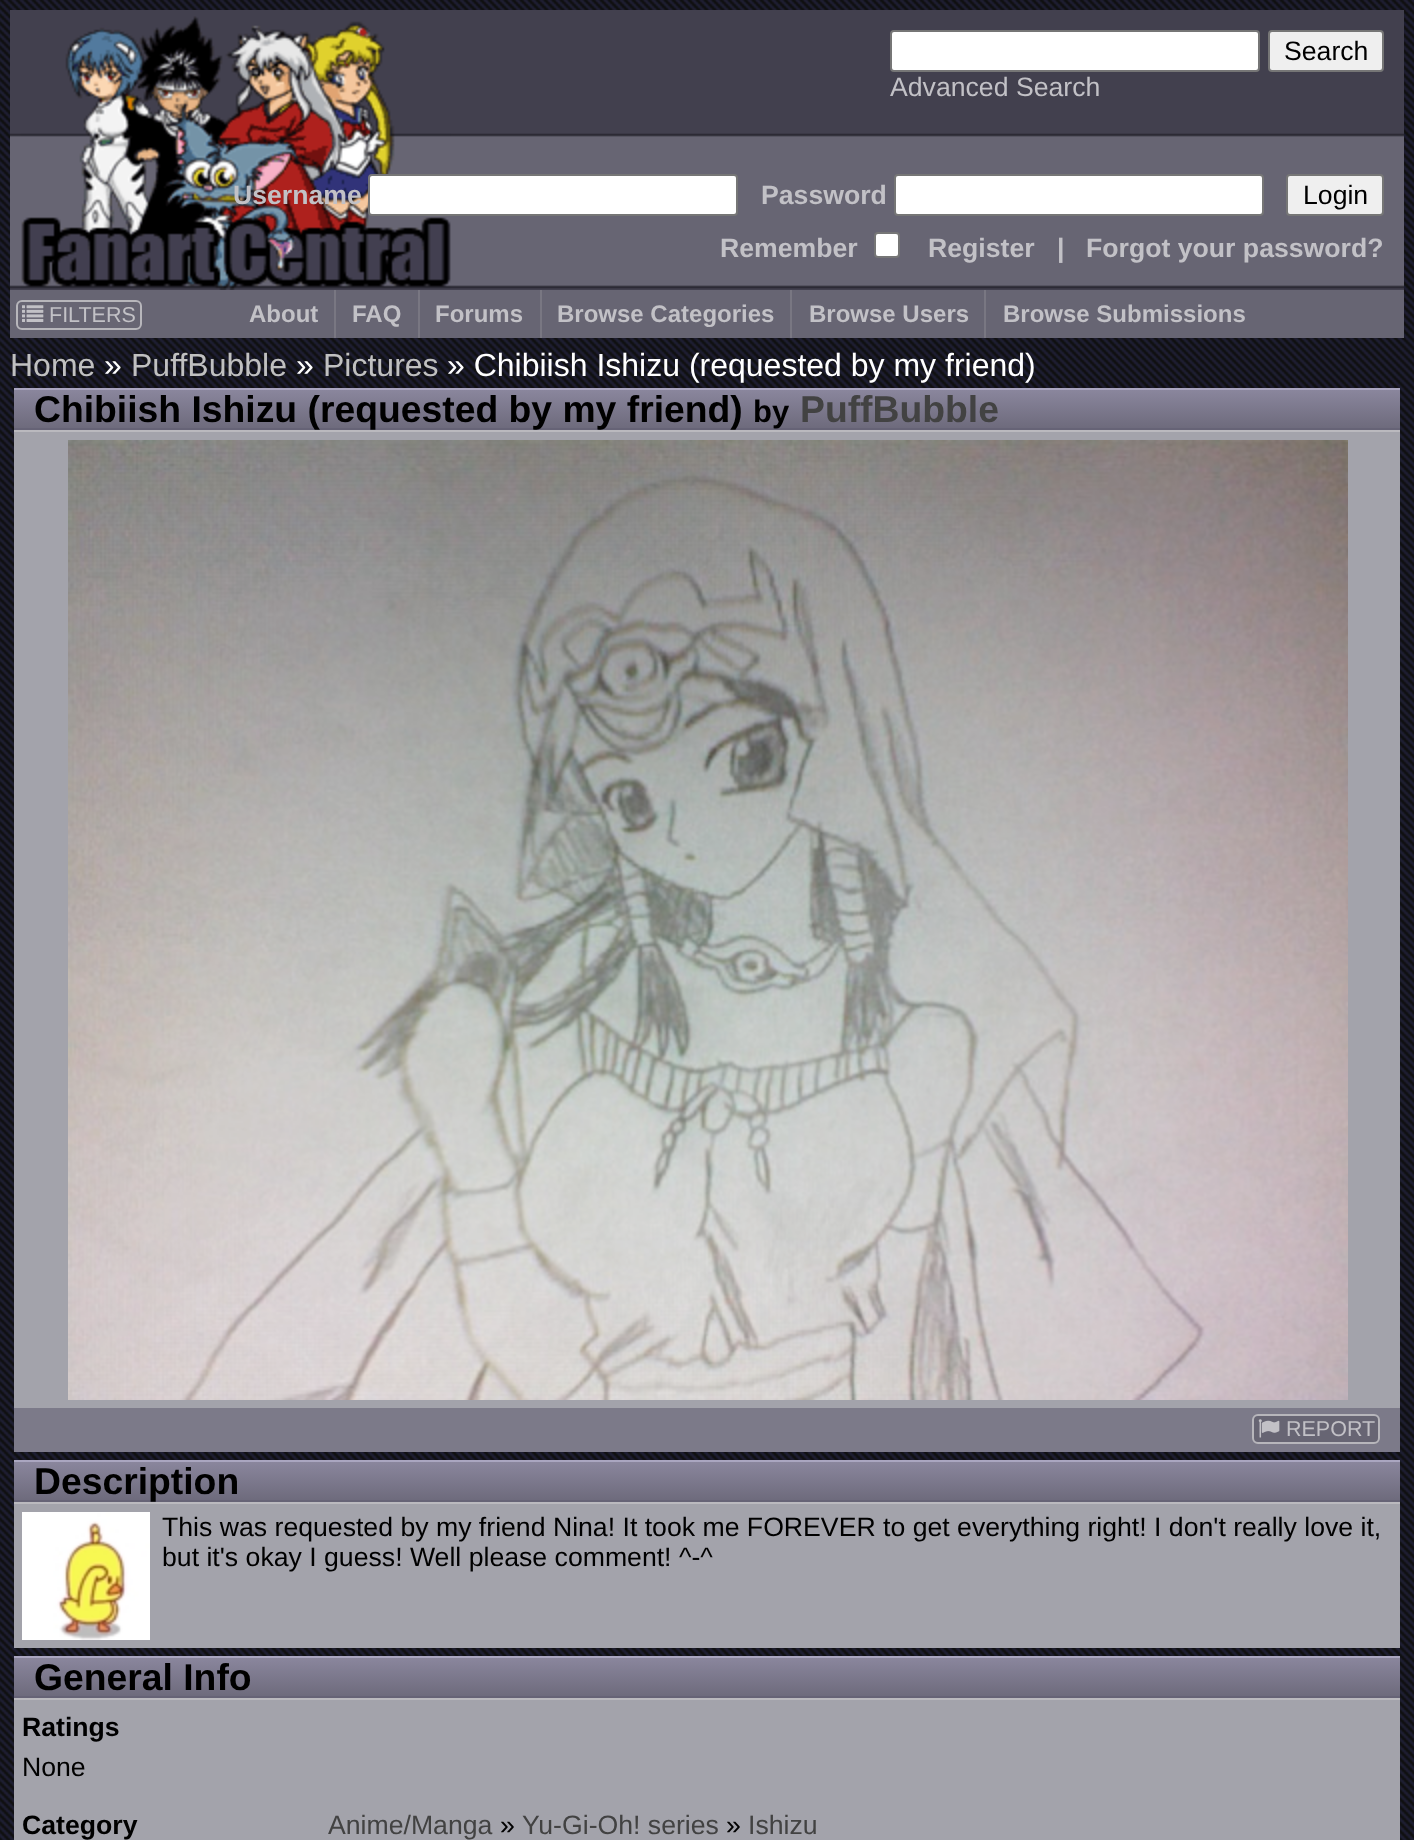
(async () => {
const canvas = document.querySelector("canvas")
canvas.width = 1414
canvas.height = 1840
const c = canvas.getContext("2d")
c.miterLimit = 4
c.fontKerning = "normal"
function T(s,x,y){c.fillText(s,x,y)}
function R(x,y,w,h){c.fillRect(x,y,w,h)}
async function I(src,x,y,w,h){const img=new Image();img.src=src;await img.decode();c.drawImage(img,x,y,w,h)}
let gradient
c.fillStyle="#fff"
R(0,0,1414,1840)
await I("1.png",0,0,1414,1840)
await I("2.png",10,10,1394,280)
await I("3.png",21,16,430,274)
c.beginPath()
c.roundRect(891,31,368,40,3)
c.fill()
c.strokeStyle="#767676"
c.lineWidth=2
c.stroke()
c.fillStyle="#efefef"
c.beginPath()
c.roundRect(1269,31,114,40,3)
c.fill()
c.stroke()
c.font="26.65px Liberation Sans"
c.fillStyle="#000"
T("Search",1284,60)
c.fillStyle="#c2c1c6"
T("Advanced Search",890,96)
c.font="bold 26.65px Liberation Sans"
T("Username",233,204)
c.fillStyle="#fff"
c.beginPath()
c.roundRect(369,175,368,40,3)
c.fill()
c.stroke()
c.fillStyle="#c2c1c6"
T("Password",761,204)
c.fillStyle="#fff"
c.beginPath()
c.roundRect(895,175,368,40,3)
c.fill()
c.stroke()
c.fillStyle="#efefef"
c.beginPath()
c.roundRect(1287,175,96,40,3)
c.fill()
c.stroke()
c.font="26.65px Liberation Sans"
c.fillStyle="#000"
T("Login",1303,204)
c.font="bold 26.65px Liberation Sans"
c.fillStyle="#c2c1c6"
T("Remember",720,257)
c.fillStyle="#fff"
c.beginPath()
c.roundRect(875,233,24,24,3)
c.fill()
c.stroke()
c.fillStyle="#c2c1c6"
T("Register",928,257)
T("|",1057,257)
T("Forgot your password?",1086,257)
c.fillStyle="#676573"
R(10,290,1394,48)
c.beginPath()
c.roundRect(17,301,124,28,5)
c.strokeStyle="#b7b6bb"
c.stroke()
await I("4.png",22,305,22,17)
c.font="21.5px Liberation Sans"
c.fillStyle="#c2c1c6"
T("FILTERS",49,322)
c.fillStyle="#797782"
R(334,290,2,48)
c.font="bold 24px Liberation Sans"
c.fillStyle="#c2c1c6"
T("About",249,322)
c.fillStyle="#797782"
R(418,290,2,48)
c.fillStyle="#c2c1c6"
T("FAQ",352,322)
c.fillStyle="#797782"
R(540,290,2,48)
c.fillStyle="#c2c1c6"
T("Forums",435,322)
c.fillStyle="#797782"
R(790,290,2,48)
c.fillStyle="#c2c1c6"
T("Browse Categories",557,322)
c.fillStyle="#797782"
R(984,290,2,48)
c.fillStyle="#c2c1c6"
T("Browse Users",809,322)
T("Browse Submissions",1003,322)
c.font="32px Liberation Sans"
c.fillStyle="#c0c0c0"
T("Home",10,376)
c.fillStyle="#fff"
T("»",104,376)
c.fillStyle="#c0c0c0"
T("PuffBubble",131,376)
c.fillStyle="#fff"
T("»",296,376)
c.fillStyle="#c0c0c0"
T("Pictures",323,376)
c.fillStyle="#fff"
T("» Chibiish Ishizu (requested by my friend)",447,376)
gradient = c.createLinearGradient(707,388,707,432)
gradient.addColorStop(.01,"#8b879e")
gradient.addColorStop(1,"#6b6879")
c.fillStyle = gradient
R(14,390,1386,38)
c.fillStyle="#aaa6c0"
R(14,388,1386,2)
c.fillStyle="#666376"
R(14,428,1386,2)
c.fillStyle="#bab9be"
R(14,430,1386,2)
c.font="bold 37.3px Liberation Sans"
c.fillStyle="#000"
T("Chibiish Ishizu (requested by my friend)",34,422)
c.font="bold 31px Liberation Sans"
T("by",753,422)
c.font="bold 37.3px Liberation Sans"
c.fillStyle="#424242"
T("PuffBubble",800,422)
c.fillStyle="#a3a3ab"
R(14,432,1386,976)
await I("5.png",68,440,1280,960)
c.fillStyle="#7c7a89"
R(14,1408,1386,44)
c.fillStyle="#676573"
c.beginPath()
c.roundRect(1253,1415,126,28,5)
c.fill()
c.stroke()
await I("6.png",1258,1419,22,19)
c.font="21.5px Liberation Sans"
c.fillStyle="#c2c1c6"
T("REPORT",1286,1436)
gradient = c.createLinearGradient(707,1460,707,1504)
gradient.addColorStop(.01,"#8b879e")
gradient.addColorStop(1,"#6b6879")
c.fillStyle = gradient
R(14,1462,1386,38)
c.fillStyle="#aaa6c0"
R(14,1460,1386,2)
c.fillStyle="#666376"
R(14,1500,1386,2)
c.fillStyle="#bab9be"
R(14,1502,1386,2)
c.font="bold 37.3px Liberation Sans"
c.fillStyle="#000"
T("Description",34,1494)
c.fillStyle="#a3a3ab"
R(14,1504,1386,144)
await I("7.png",22,1512,128,128)
c.font="26.65px Liberation Sans"
c.fillStyle="#000"
T("This was requested by my friend Nina! It took me FOREVER to get everything right! I don't really love it,",162,1536)
T("but it's okay I guess! Well please comment! ^-^",162,1566)
gradient = c.createLinearGradient(707,1656,707,1700)
gradient.addColorStop(.01,"#8b879e")
gradient.addColorStop(1,"#6b6879")
c.fillStyle = gradient
R(14,1658,1386,38)
c.fillStyle="#aaa6c0"
R(14,1656,1386,2)
c.fillStyle="#666376"
R(14,1696,1386,2)
c.fillStyle="#bab9be"
R(14,1698,1386,2)
c.font="bold 37.3px Liberation Sans"
c.fillStyle="#000"
T("General Info",34,1690)
c.fillStyle="#a3a3ab"
R(14,1700,1386,140)
c.font="bold 26.65px Liberation Sans"
c.fillStyle="#000"
T("Ratings",22,1736)
c.font="26.65px Liberation Sans"
T("None",22,1776)
c.font="bold 26.65px Liberation Sans"
T("Category",22,1834)
c.font="26.65px Liberation Sans"
c.fillStyle="#424242"
T("Anime/Manga",328,1834)
c.fillStyle="#000"
T("»",500,1834)
c.fillStyle="#424242"
T("Yu-Gi-Oh! series",522,1834)
c.fillStyle="#000"
T("»",726,1834)
c.fillStyle="#424242"
T("Ishizu",748,1834)
})()
